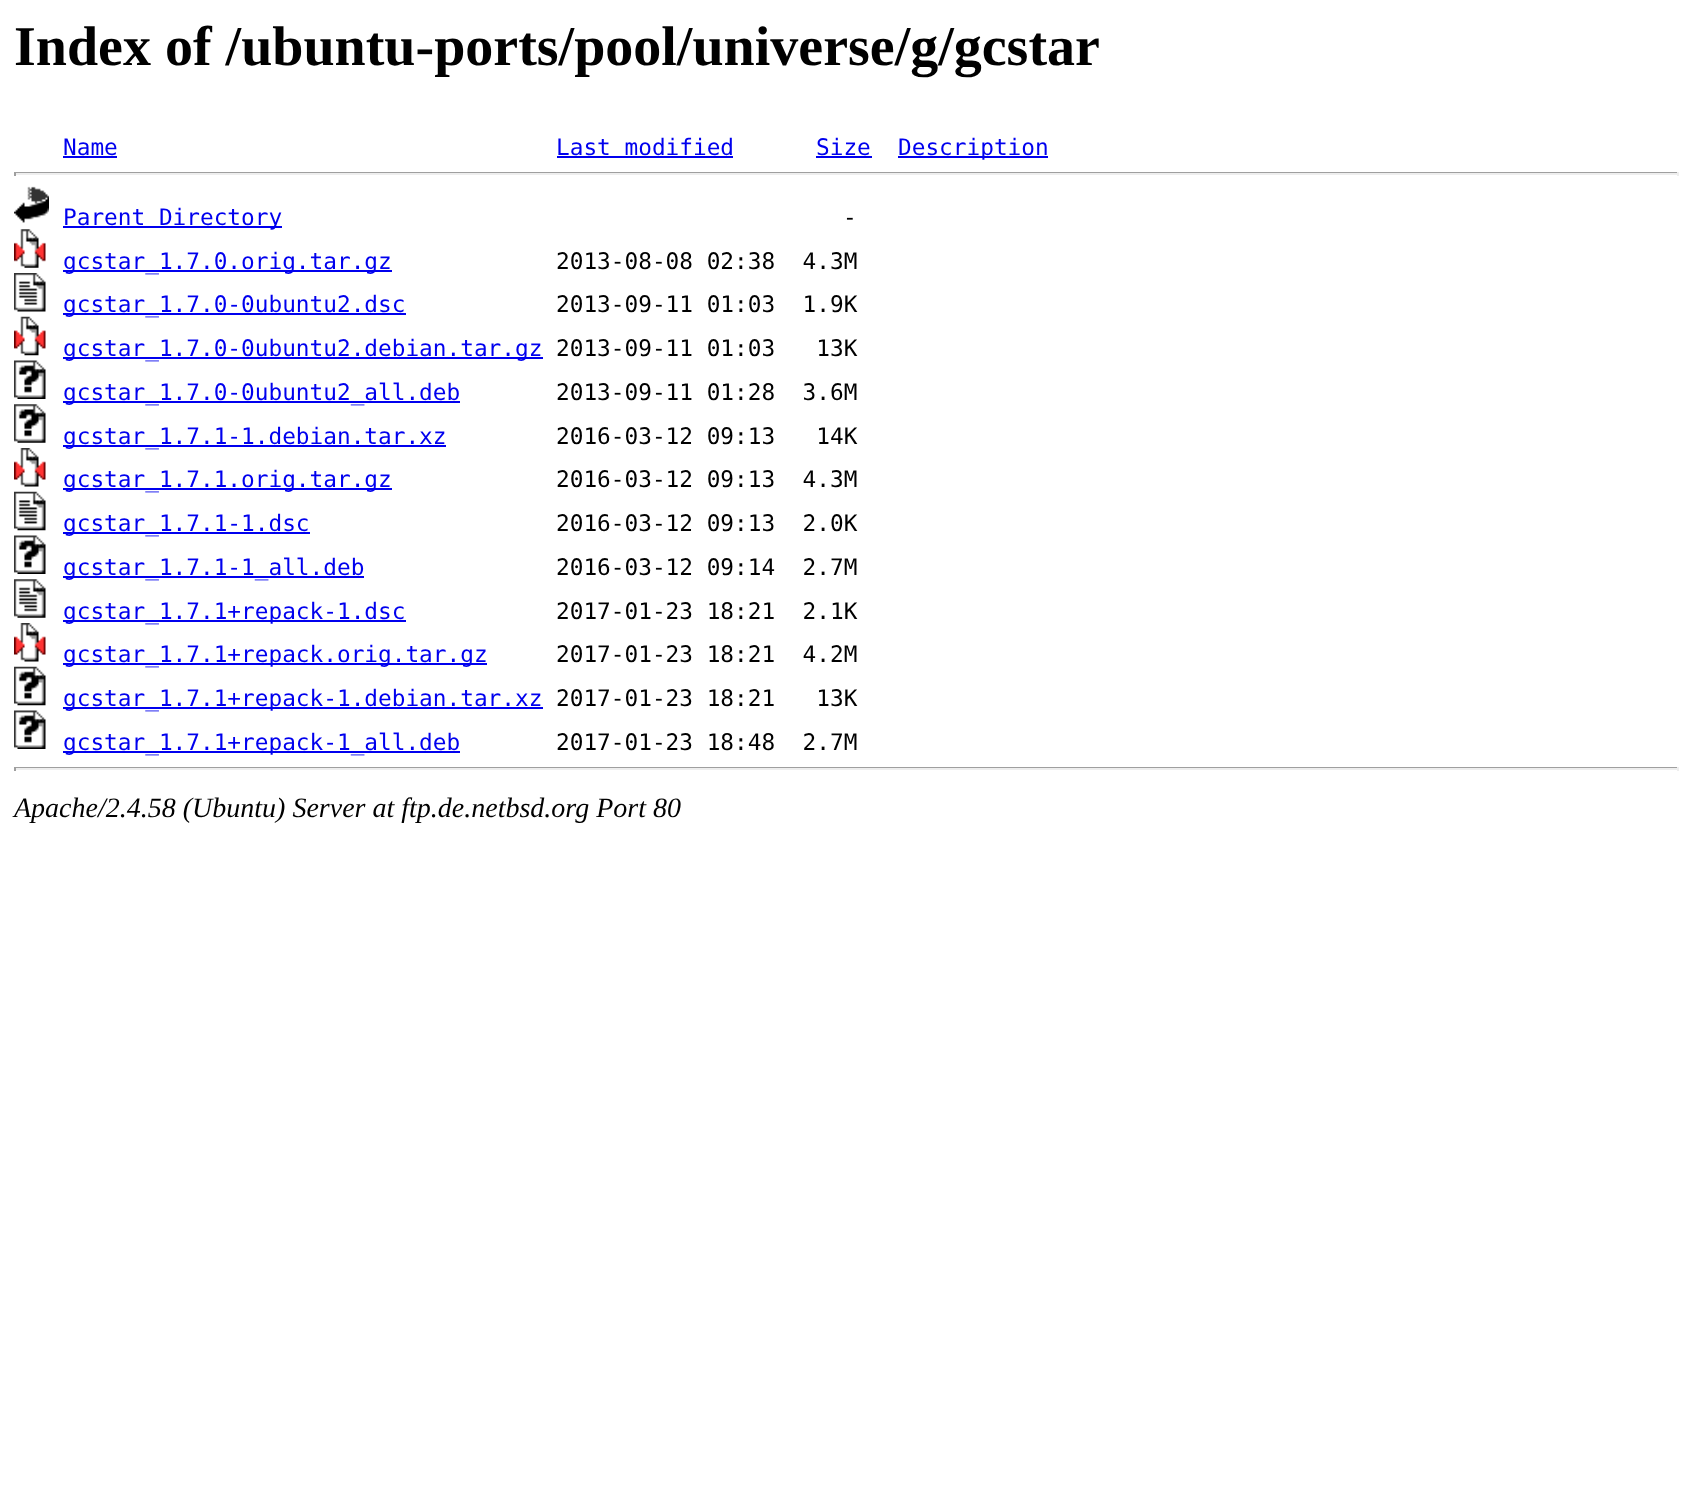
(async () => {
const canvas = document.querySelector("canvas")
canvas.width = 1692
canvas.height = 1490
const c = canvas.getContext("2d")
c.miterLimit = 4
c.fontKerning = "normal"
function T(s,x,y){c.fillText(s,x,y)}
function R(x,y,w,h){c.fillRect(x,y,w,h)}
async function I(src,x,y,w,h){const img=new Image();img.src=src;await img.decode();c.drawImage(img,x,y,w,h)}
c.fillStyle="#fff"
R(0,0,1692,1490)
c.font="bold 56px Liberation Serif"
c.fillStyle="#000"
T("Index of /ubuntu-ports/pool/universe/g/gcstar",14,65)
c.font="22.75px DejaVu Sans Mono"
c.fillStyle="#00e"
T("Name",63,155)
R(63,156,54,2)
T("Last modified",556,155)
R(557,156,176,2)
T("Size",816,155)
R(816,156,56,2)
R(898,156,150,2)
T("Description",898,155)
c.fillStyle="#9f9f9f"
R(14,172,1664,1)
c.fillStyle="#eee"
R(1677,172,2,4)
R(14,173,1664,2)
c.fillStyle="#9f9f9f"
R(14,172,2,4)
await I("1.png",14,186,35,37)
c.fillStyle="#00e"
R(63,226,219,2)
T("Parent Directory",63,225)
c.fillStyle="#000"
T("-",843,225)
await I("2.png",14,229,32,39)
c.fillStyle="#00e"
R(63,270,329,2)
T("gcstar_1.7.0.orig.tar.gz",63,269)
c.fillStyle="#000"
T("2013-08-08 02:38  4.3M",556,269)
await I("3.png",14,273,32,39)
c.fillStyle="#00e"
R(63,313,343,2)
T("gcstar_1.7.0-0ubuntu2.dsc",63,312)
c.fillStyle="#000"
T("2013-09-11 01:03  1.9K",556,312)
await I("4.png",14,316,32,40)
c.fillStyle="#00e"
R(63,357,480,2)
T("gcstar_1.7.0-0ubuntu2.debian.tar.gz",63,356)
c.fillStyle="#000"
T("2013-09-11 01:03   13K",556,356)
await I("5.png",14,360,32,39)
c.fillStyle="#00e"
R(63,401,397,2)
T("gcstar_1.7.0-0ubuntu2_all.deb",63,400)
c.fillStyle="#000"
T("2013-09-11 01:28  3.6M",556,400)
await I("6.png",14,404,32,39)
c.fillStyle="#00e"
R(63,445,383,2)
T("gcstar_1.7.1-1.debian.tar.xz",63,444)
c.fillStyle="#000"
T("2016-03-12 09:13   14K",556,444)
await I("7.png",14,448,32,39)
c.fillStyle="#00e"
R(63,488,329,2)
T("gcstar_1.7.1.orig.tar.gz",63,487)
c.fillStyle="#000"
T("2016-03-12 09:13  4.3M",556,487)
await I("8.png",14,491,32,40)
c.fillStyle="#00e"
R(63,532,247,2)
T("gcstar_1.7.1-1.dsc",63,531)
c.fillStyle="#000"
T("2016-03-12 09:13  2.0K",556,531)
await I("5.png",14,535,32,39)
c.fillStyle="#00e"
R(63,576,301,2)
T("gcstar_1.7.1-1_all.deb",63,575)
c.fillStyle="#000"
T("2016-03-12 09:14  2.7M",556,575)
await I("9.png",14,579,32,39)
c.fillStyle="#00e"
R(63,620,343,2)
T("gcstar_1.7.1+repack-1.dsc",63,619)
c.fillStyle="#000"
T("2017-01-23 18:21  2.1K",556,619)
await I("7.png",14,623,32,39)
c.fillStyle="#00e"
R(63,663,424,2)
T("gcstar_1.7.1+repack.orig.tar.gz",63,662)
c.fillStyle="#000"
T("2017-01-23 18:21  4.2M",556,662)
await I("10.png",14,666,32,40)
c.fillStyle="#00e"
R(63,707,480,2)
T("gcstar_1.7.1+repack-1.debian.tar.xz",63,706)
c.fillStyle="#000"
T("2017-01-23 18:21   13K",556,706)
await I("5.png",14,710,32,39)
c.fillStyle="#00e"
R(63,751,397,2)
T("gcstar_1.7.1+repack-1_all.deb",63,750)
c.fillStyle="#000"
T("2017-01-23 18:48  2.7M",556,750)
c.fillStyle="#9f9f9f"
R(14,767,1664,1)
c.fillStyle="#eee"
R(1677,767,2,4)
R(14,768,1664,2)
c.fillStyle="#9f9f9f"
R(14,767,2,4)
c.font="italic 28px Liberation Serif"
c.fillStyle="#000"
T("Apache/2.4.58 (Ubuntu) Server at ftp.de.netbsd.org Port 80",14,817)
})()
